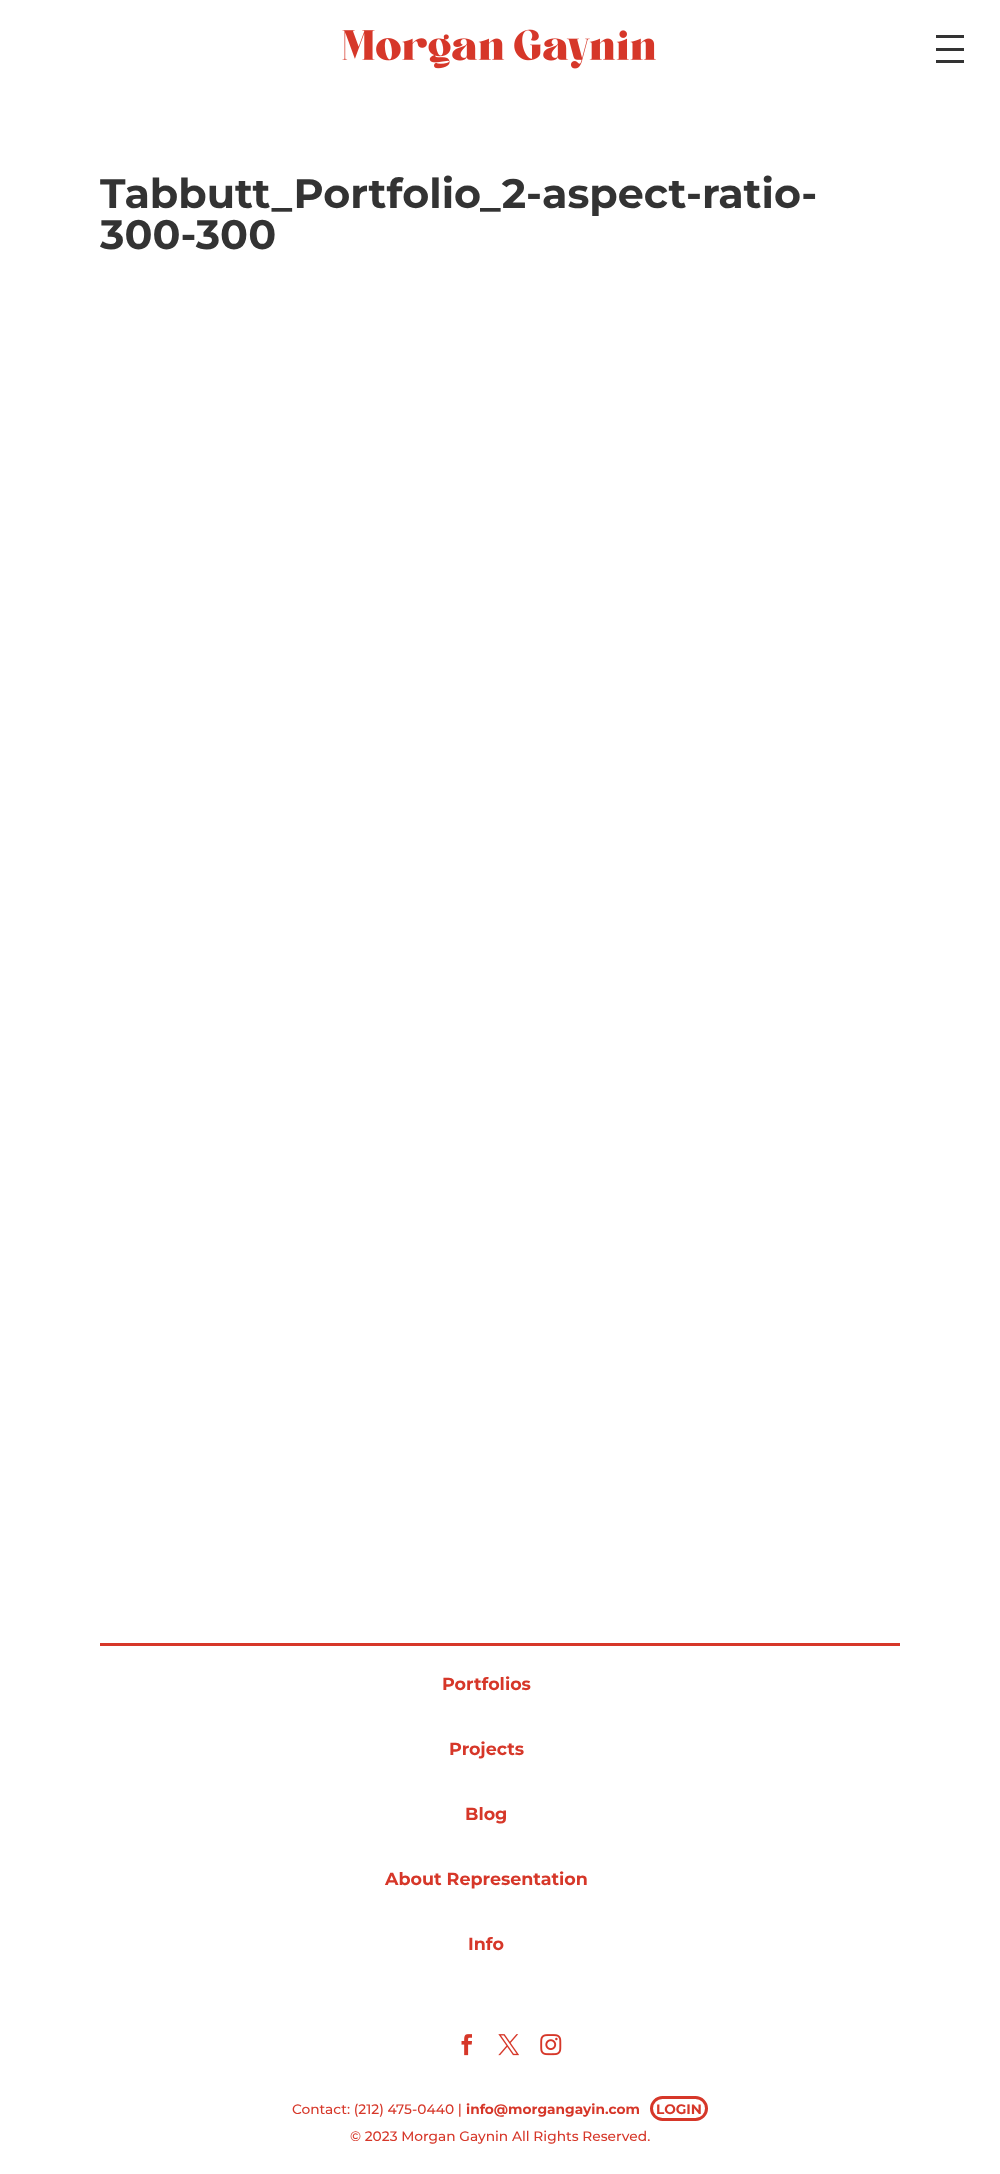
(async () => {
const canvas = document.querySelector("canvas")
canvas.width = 1000
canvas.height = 2174
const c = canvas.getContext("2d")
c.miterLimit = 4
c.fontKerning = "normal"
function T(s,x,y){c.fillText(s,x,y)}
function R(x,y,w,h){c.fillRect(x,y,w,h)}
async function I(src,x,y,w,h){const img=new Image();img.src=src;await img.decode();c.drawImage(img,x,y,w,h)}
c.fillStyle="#fff"
R(0,0,1000,2174)
await I("1.png",342,29,314,40)
c.fillStyle="#333"
R(936,35,28,3)
R(936,48,28,3)
R(936,60,28,3)
c.font="100 41.25px Montserrat"
T("Tabbutt_Portfolio_2-aspect-ratio-",100,208)
T("300-300",100,249)
c.fillStyle="#d63729"
R(100,1643,800,3)
c.font="100 17.5px Montserrat"
T("Portfolios",442,1690)
T("Projects",449,1755)
T("Blog",465,1820)
T("About Representation",385,1885)
T("Info",468,1950)
await I("2.png",461,2034,11,22)
await I("3.png",498,2034,21,22)
await I("4.png",540,2034,22,22)
c.font="100 13.75px 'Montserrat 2'"
T("Contact: (212) 475-0440 |",292,2114)
c.font="100 13.75px Montserrat"
T("info@morgangayin.com",466,2114)
c.beginPath()
c.roundRect(651.5,2097.5,55,22,11)
c.strokeStyle="#d63729"
c.lineWidth=3
c.stroke()
T("LOGIN",656,2114)
c.font="100 13.75px 'Montserrat 2'"
T("© 2023 Morgan Gaynin All Rights Reserved.",350,2141)
})()
